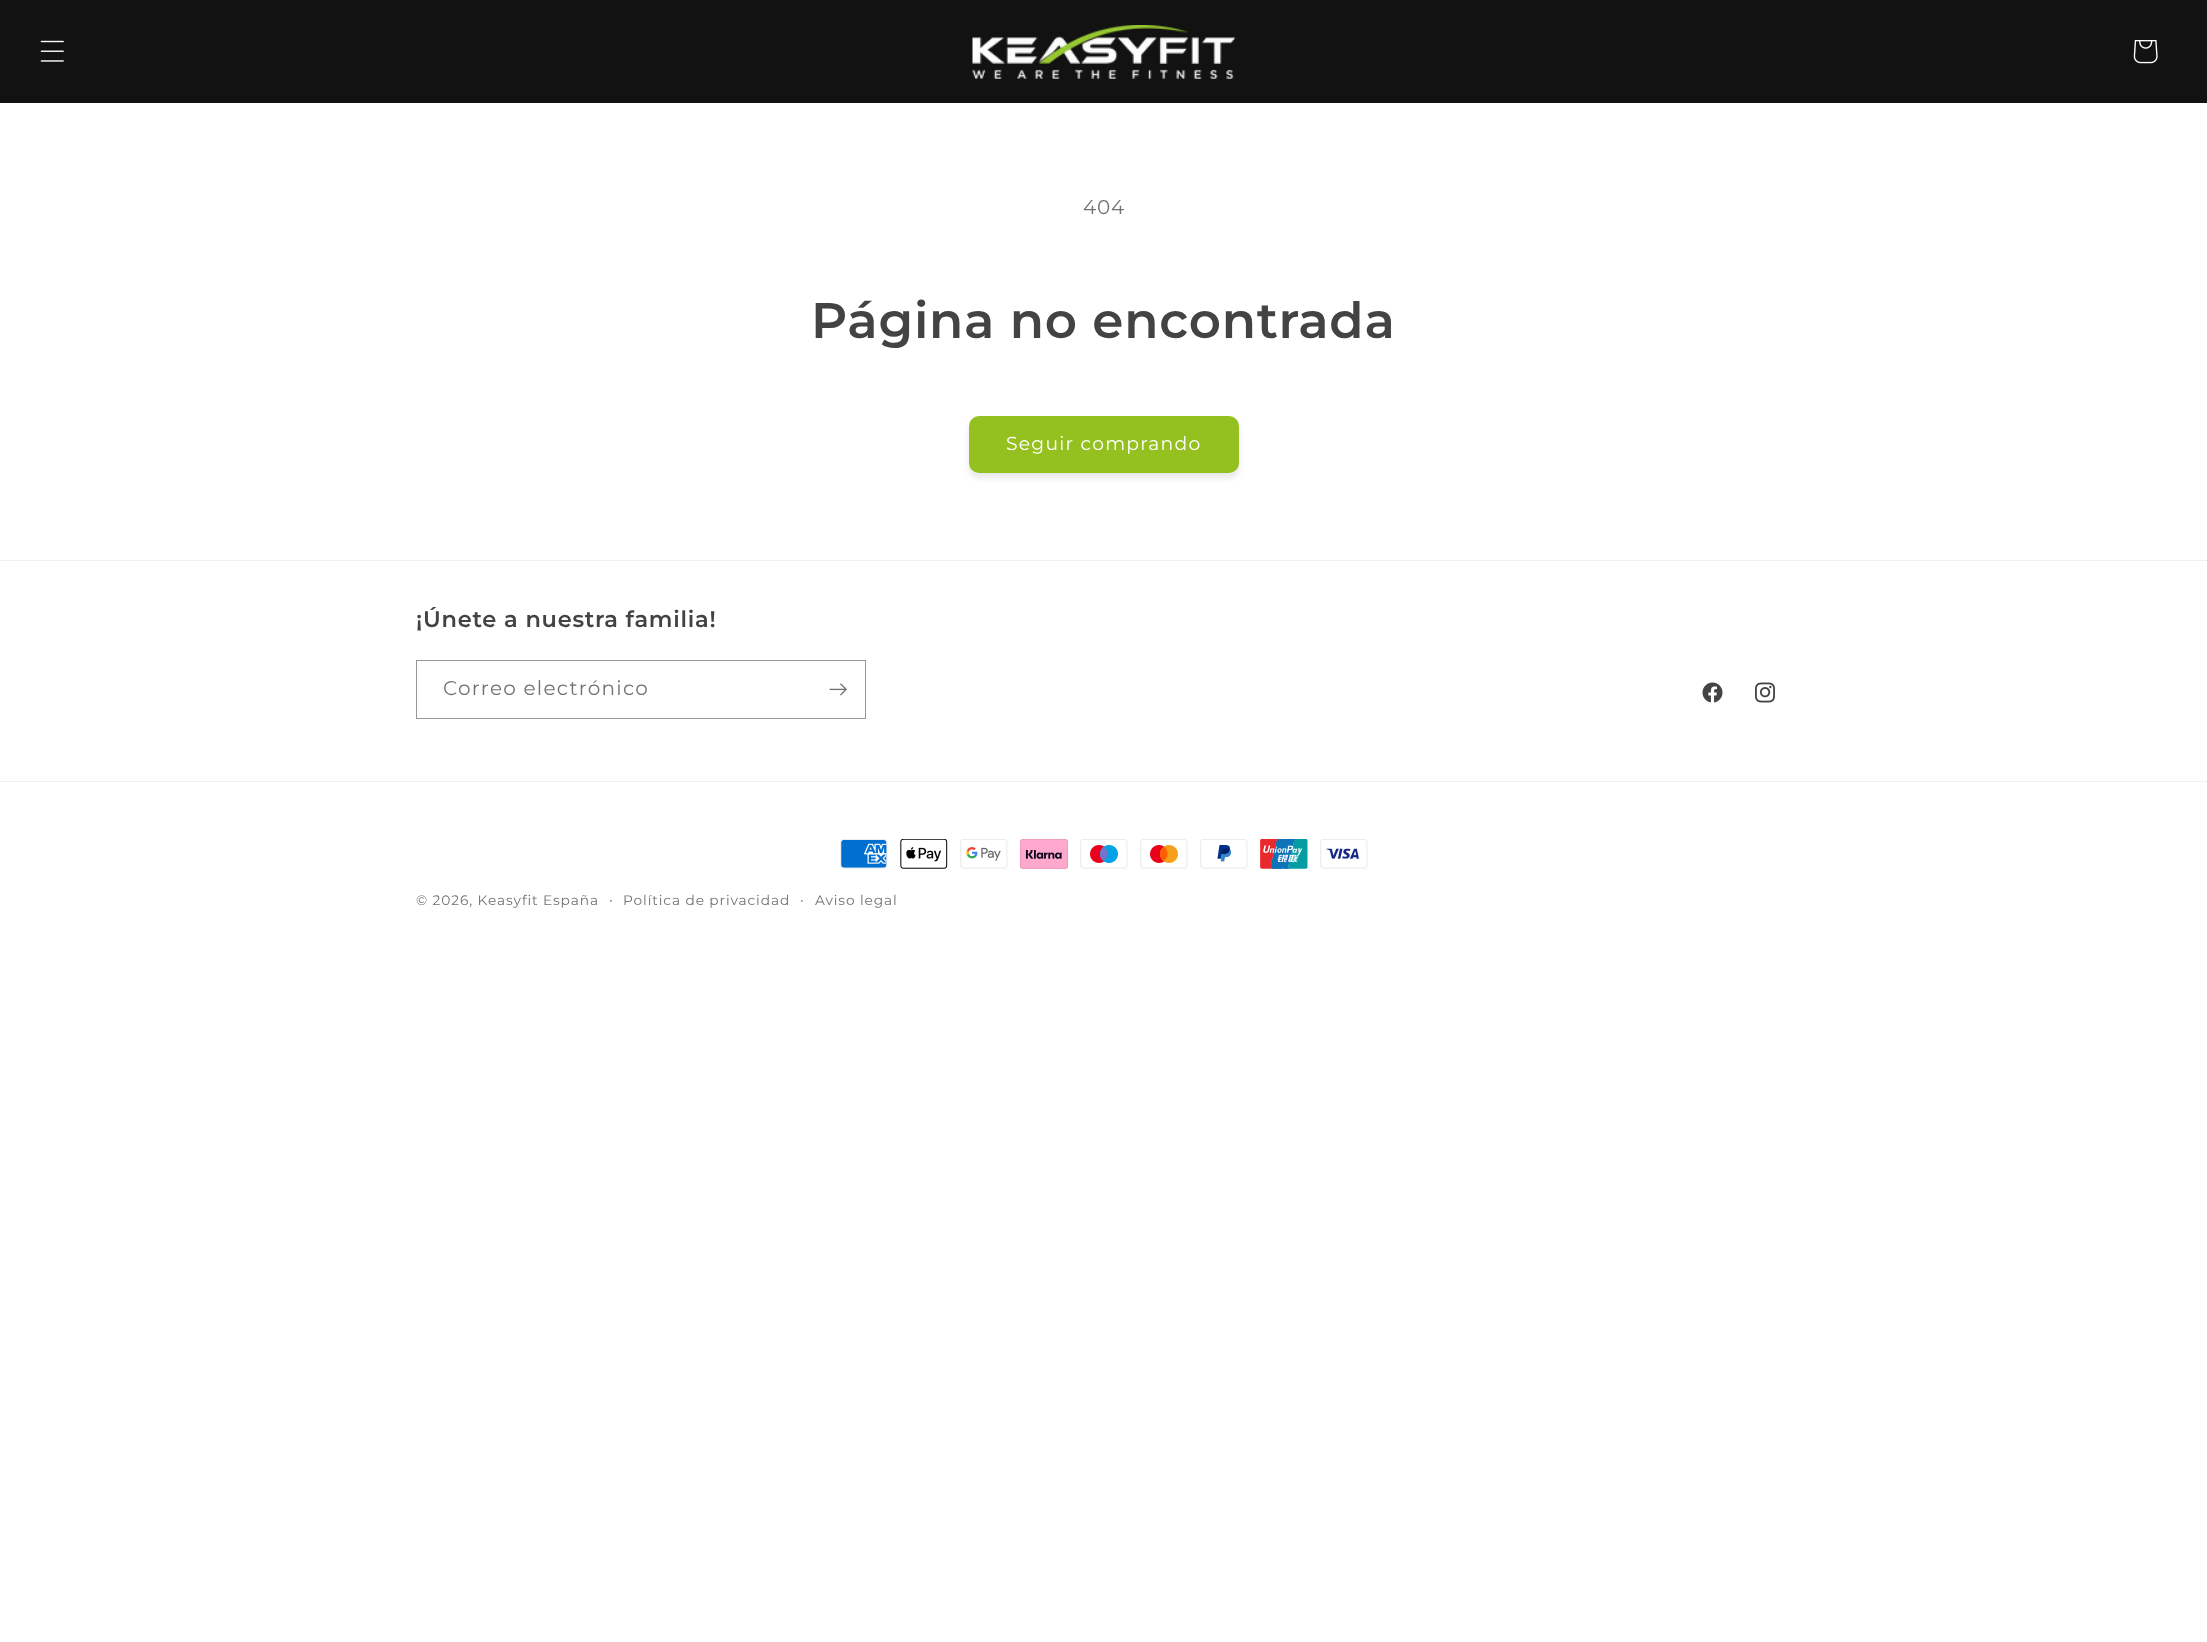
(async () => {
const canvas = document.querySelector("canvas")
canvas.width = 2207
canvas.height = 1642
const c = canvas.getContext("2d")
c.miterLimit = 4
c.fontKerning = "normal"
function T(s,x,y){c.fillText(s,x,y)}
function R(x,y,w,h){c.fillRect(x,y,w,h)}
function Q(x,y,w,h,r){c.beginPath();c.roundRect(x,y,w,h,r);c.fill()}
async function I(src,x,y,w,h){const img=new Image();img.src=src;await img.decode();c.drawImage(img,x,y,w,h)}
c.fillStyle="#fff"
R(0,0,2207,1642)
c.fillStyle="#121212"
R(0,0,2207,103)
await I("1.png",40,40,24,22)
await I("2.png",972,25,263,54)
await I("3.png",2133,40,25,24)
c.letterSpacing="0.75px"
c.font="20px Montserrat"
c.fillStyle="#727272"
T("404",1083,214)
c.font="600 50px Montserrat"
c.fillStyle="#434343"
T("Página no encontrada",811,338)
c.fillStyle="#1212121a"
c.filter="blur(3px)"
c.beginPath()
c.roundRect(969,421,270,57,10)
c.fill()
c.filter="none"
c.fillStyle="#94c11f"
Q(969,416,270,57,10)
c.letterSpacing="1.25px"
c.font="18.75px Montserrat"
c.fillStyle="#fff"
T("Seguir comprando",1006,450)
c.fillStyle="#f0f0f0"
R(0,560,2207,1)
c.letterSpacing="0.75px"
c.font="600 22.5px Montserrat"
c.fillStyle="#434343"
T("¡Únete a nuestra familia!",416,627)
c.strokeStyle="#989898"
c.strokeRect(416.5,660.5,449,58)
c.letterSpacing="1.25px"
c.font="20px Montserrat"
c.fillStyle="#727272"
T("Correo electrónico",443,695)
await I("4.png",829,683,18,13)
await I("5.png",1702,682,21,21)
await I("6.png",1755,682,20,21)
c.fillStyle="#f0f0f0"
R(0,781,2207,1)
await I("7.png",840,839,48,30)
await I("8.png",900,839,48,30)
await I("9.png",960,839,48,30)
await I("10.png",1020,839,48,30)
await I("11.png",1080,839,48,30)
await I("12.png",1140,839,48,30)
await I("13.png",1200,839,48,30)
await I("14.png",1260,839,48,30)
await I("15.png",1320,839,48,30)
c.letterSpacing="0.9px"
c.font="13.75px Montserrat"
c.fillStyle="#727272"
T("© 2026, Keasyfit España",416,905)
c.font="15px Montserrat"
T("·",609,905)
c.font="13.75px Montserrat"
T("Política de privacidad",623,905)
c.font="15px Montserrat"
T("·",800,905)
c.font="13.75px Montserrat"
T("Aviso legal",815,905)
})()
